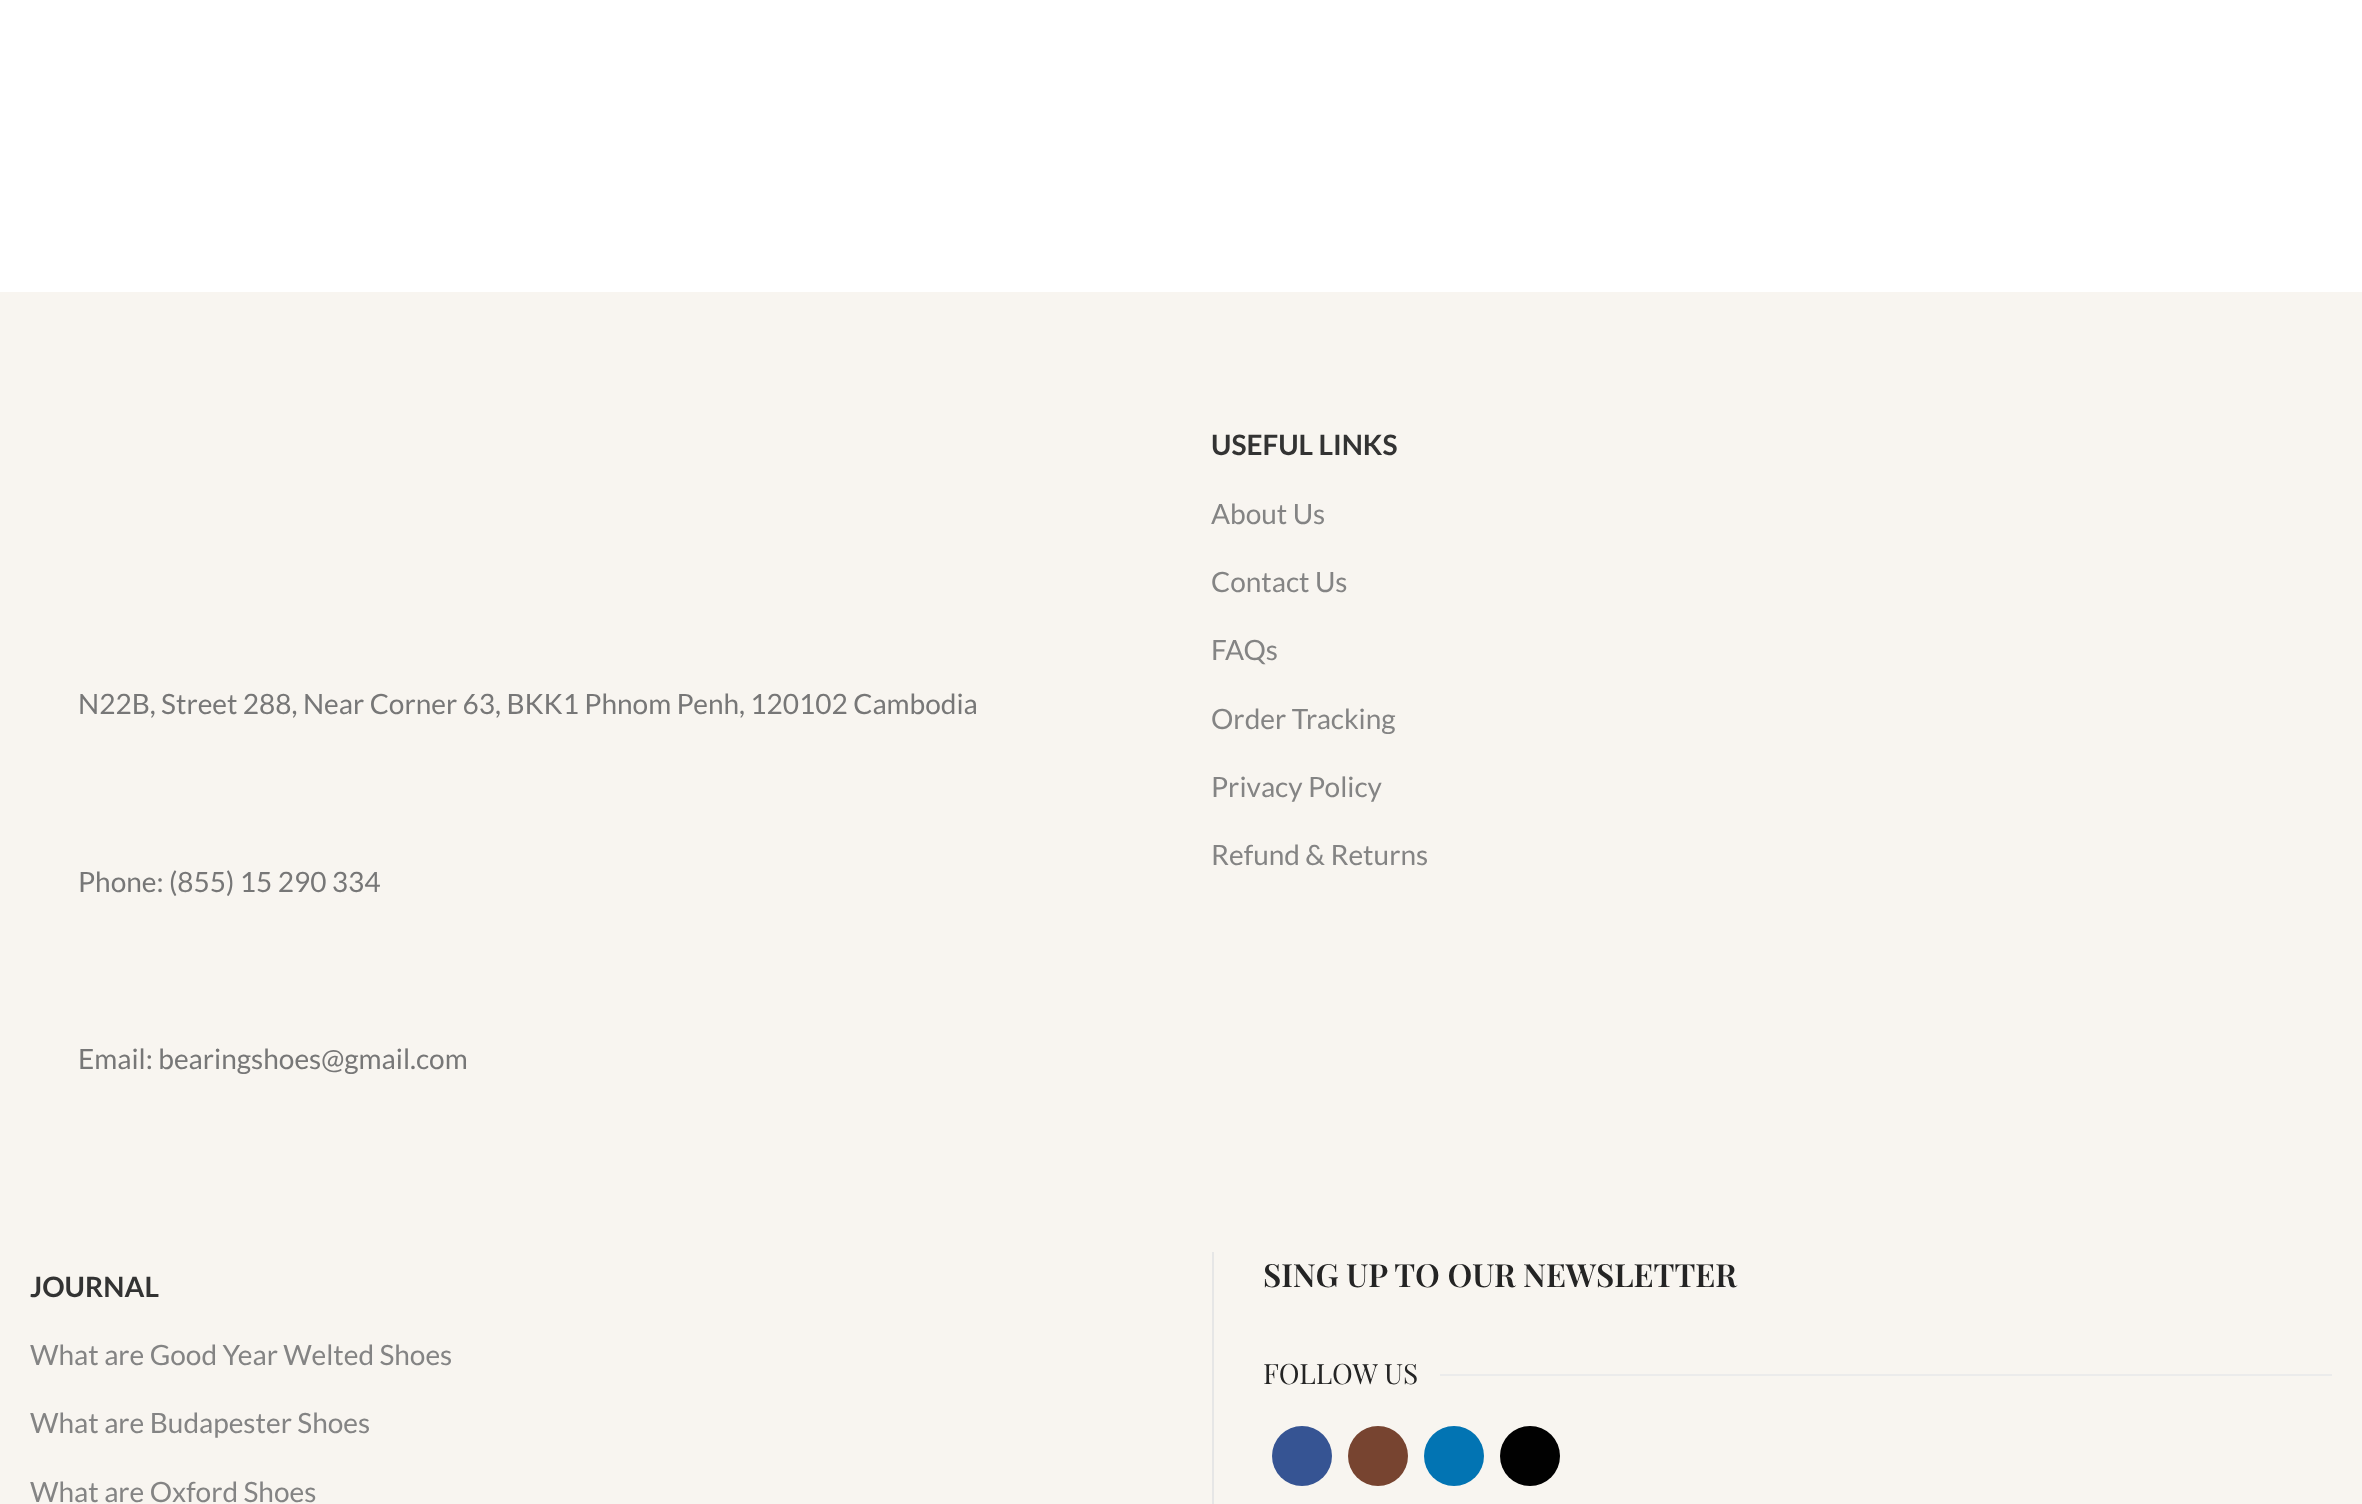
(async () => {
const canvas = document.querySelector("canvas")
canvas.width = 2362
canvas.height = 1504
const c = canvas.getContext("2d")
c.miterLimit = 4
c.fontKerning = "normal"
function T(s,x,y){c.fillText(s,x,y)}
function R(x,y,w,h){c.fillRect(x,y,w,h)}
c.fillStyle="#fff"
R(0,0,2362,1504)
c.fillStyle="#f8f5f0"
R(0,292,2362,1212)
c.font="28px Lato"
c.fillStyle="#777"
T("N22B, Street 288, Near Corner 63, BKK1 Phnom Penh, 120102 Cambodia",78,714)
T("Phone: (855) 15 290 334",78,892)
T("Email: bearingshoes@gmail.com",78,1069)
c.font="bold 28px Lato"
c.fillStyle="#333"
T("USEFUL LINKS",1211,455)
c.font="28px Lato"
c.fillStyle="#848484"
T("About Us",1211,524)
T("Contact Us",1211,592)
T("FAQs",1211,660)
T("Order Tracking",1211,729)
T("Privacy Policy",1211,797)
T("Refund & Returns",1211,865)
c.font="bold 28px Lato"
c.fillStyle="#333"
T("JOURNAL",30,1297)
c.font="28px Lato"
c.fillStyle="#848484"
T("What are Good Year Welted Shoes",30,1365)
T("What are Budapester Shoes",30,1433)
T("What are Oxford Shoes",30,1502)
c.fillStyle="#e6e6e6"
R(1212,1252,2,252)
c.font="600 32px Playfair Display"
c.fillStyle="#242424"
T("SING UP TO OUR NEWSLETTER",1263,1287)
c.font="28px Playfair Display"
T("FOLLOW US",1263,1384)
c.fillStyle="#ebebeb"
R(1440,1374,892,2)
c.fillStyle="#365493"
c.beginPath()
c.arc(1302,1456,30,0,7)
c.fill()
c.fillStyle="#774430"
c.beginPath()
c.arc(1378,1456,30,0,7)
c.fill()
c.fillStyle="#0274b3"
c.beginPath()
c.arc(1454,1456,30,0,7)
c.fill()
c.fillStyle="#010101"
c.beginPath()
c.arc(1530,1456,30,0,7)
c.fill()
})()
